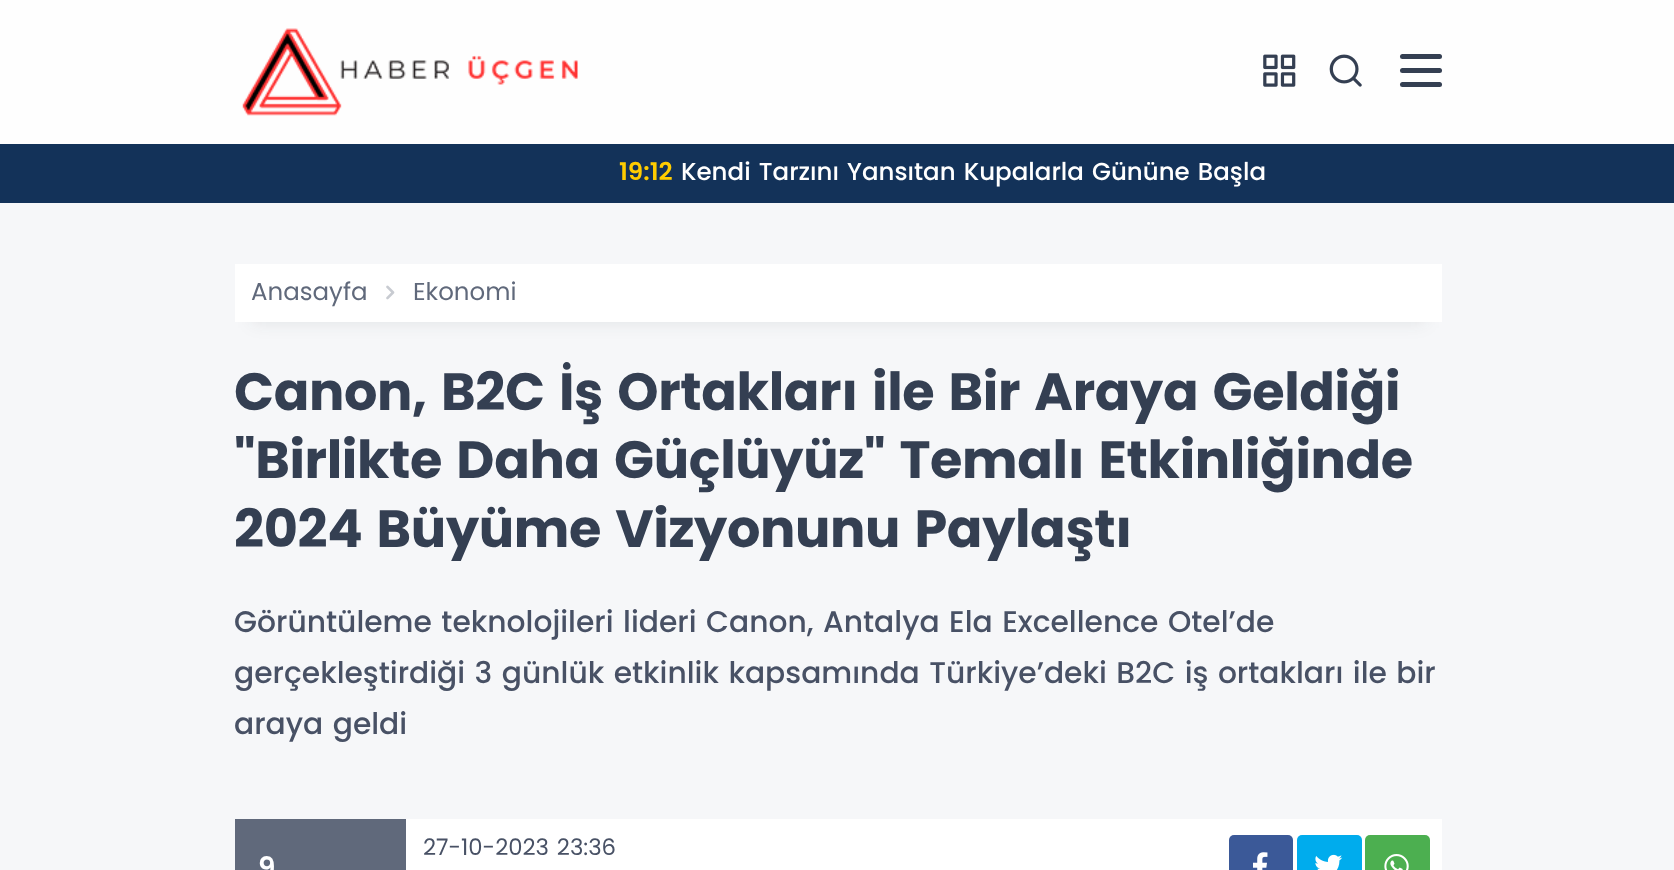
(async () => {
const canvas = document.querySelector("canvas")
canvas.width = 1674
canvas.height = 870
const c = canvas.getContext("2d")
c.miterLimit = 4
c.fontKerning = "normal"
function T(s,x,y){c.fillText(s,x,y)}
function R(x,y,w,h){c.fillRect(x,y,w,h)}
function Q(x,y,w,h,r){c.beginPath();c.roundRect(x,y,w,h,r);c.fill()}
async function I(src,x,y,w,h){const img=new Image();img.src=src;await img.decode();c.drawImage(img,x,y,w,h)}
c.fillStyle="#f6f7f9"
R(0,0,1674,870)
c.fillStyle="#fefefe"
R(0,0,1674,144)
await I("1.png",242,28,336,88)
await I("2.png",1263,54,33,33)
await I("3.png",1329,54,33,33)
c.fillStyle="#343f52"
Q(1400,54,42,5,2.5)
Q(1400,68,42,5,2.5)
Q(1400,82,42,5,2.5)
c.fillStyle="#133259"
R(0,144,1674,59)
c.font="600 24.5px Poppins"
c.fillStyle="#fc0"
T("19:12",619,180)
c.wordSpacing="1.75px"
c.font="500 24.5px Poppins"
c.fillStyle="#fff"
T("Kendi Tarzını Yansıtan Kupalarla Gününe Başla",681,180)
c.fillStyle="#2123261a"
c.filter="blur(9px)"
c.beginPath()
c.rect(252,299,1173,23)
c.fill()
c.filter="none"
c.fillStyle="#fff"
R(235,264,1207,58)
c.wordSpacing="0px"
c.font="24.5px Poppins"
c.fillStyle="#60697b"
T("Anasayfa",251,300)
await I("4.png",386,285,9,15)
T("Ekonomi",413,300)
c.letterSpacing="-0.35px"
c.wordSpacing="3.5px"
c.font="bold 52.5px Poppins"
c.fillStyle="#343f52"
T("Canon, B2C İş Ortakları ile Bir Araya Geldiği",234,410)
T("\"Birlikte Daha Güçlüyüz\" Temalı Etkinliğinde",234,478)
T("2024 Büyüme Vizyonunu Paylaştı",234,547)
c.letterSpacing="0px"
c.wordSpacing="1.75px"
c.font="500 29.75px Poppins"
c.fillStyle="#485165"
T("Görüntüleme teknolojileri lideri Canon, Antalya Ela Excellence Otel’de",234,632)
T("gerçekleştirdiği 3 günlük etkinlik kapsamında Türkiye’deki B2C iş ortakları ile bir",234,683)
T("araya geldi",234,734)
c.fillStyle="#fff"
R(406,819,1036,51)
c.font="22.75px Poppins"
c.fillStyle="#485165"
T("27-10-2023 23:36",423,855)
c.fillStyle="#60697b"
R(235,819,171,51)
c.wordSpacing="0px"
c.font="600 28px Poppins"
c.fillStyle="#fff"
T("9",258,877)
c.fillStyle="#3b5998"
Q(1229,835,64,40,5)
await I("5.png",1253,852,15,18)
c.fillStyle="#00aced"
Q(1297,835,65,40,5)
await I("6.png",1315,854,28,16)
c.fillStyle="#4caf50"
Q(1365,835,65,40,5)
await I("7.png",1384,854,25,16)
})()
